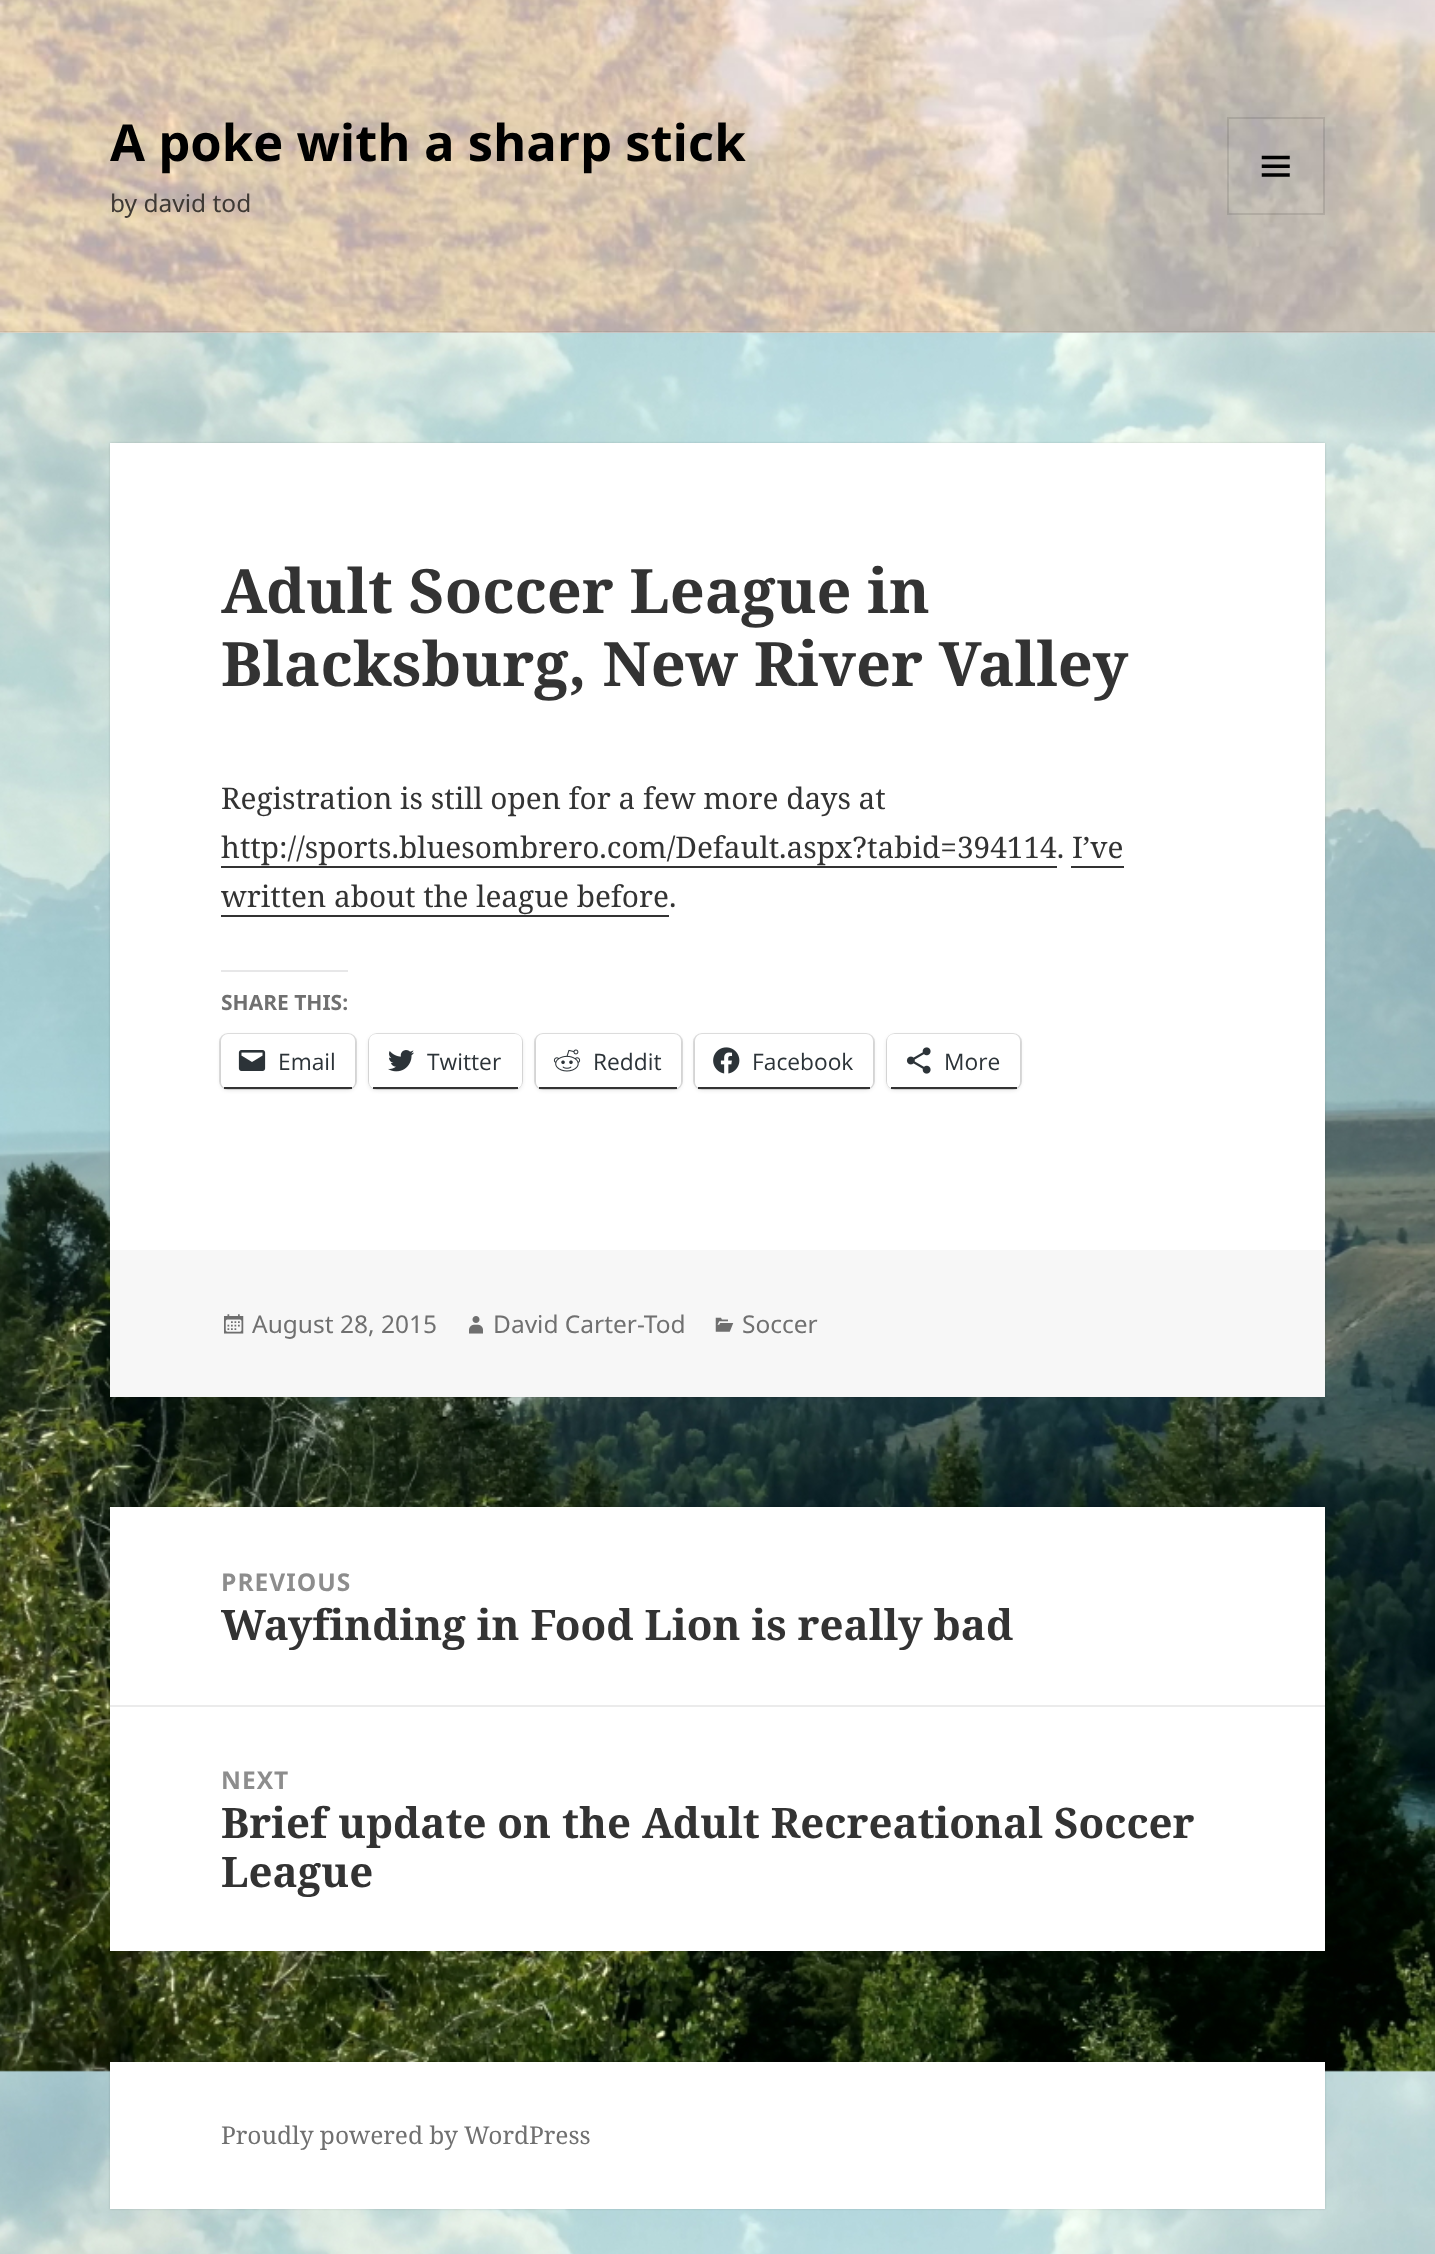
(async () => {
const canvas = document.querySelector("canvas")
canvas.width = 1435
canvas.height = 2254
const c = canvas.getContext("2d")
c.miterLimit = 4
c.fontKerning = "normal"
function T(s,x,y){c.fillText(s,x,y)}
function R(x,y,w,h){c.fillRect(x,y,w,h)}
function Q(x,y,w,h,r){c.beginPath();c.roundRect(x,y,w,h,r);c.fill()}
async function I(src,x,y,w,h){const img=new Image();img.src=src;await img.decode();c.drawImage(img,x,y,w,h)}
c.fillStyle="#fff"
R(0,0,1435,2254)
await I("1.png",0,333,1435,1921)
c.fillStyle="#f7f7f7"
R(0,332,1435,1)
await I("2.png",0,0,1435,333)
c.fillStyle="#3333331a"
R(0,331,1435,2)
c.font="bold 50.75px Noto Sans"
c.fillStyle="#000"
T("A poke with a sharp stick",110,161)
c.strokeStyle="#0000001a"
c.lineWidth=2
c.strokeRect(1228,118,96,96)
await I("3.png",1261,155,29,22)
c.font="24.5px Noto Sans"
c.fillStyle="#3e3934"
T("by david tod",110,212)
c.fillStyle="#00000026"
c.filter="blur(1px)"
c.beginPath()
c.rect(110,443,1215,954)
c.fill()
c.filter="none"
c.fillStyle="#fff"
R(110,443,1215,807)
c.font="bold 61.25px Noto Serif"
c.fillStyle="#333"
T("Adult Soccer League in",221,613)
T("Blacksburg, New River Valley",221,686)
c.font="29.75px Noto Serif"
T("Registration is still open for a few more days at",221,809)
T("http://sports.bluesombrero.com/Default.aspx?tabid=394114. I’ve",221,858)
R(221,866,836,2)
T("written about the league before.",221,907)
R(1071,866,53,2)
R(221,915,448,2)
c.fillStyle="#e7e7e8"
R(221,970,127,2)
c.font="bold 21px Noto Sans"
c.fillStyle="#707070"
T("SHARE THIS:",221,1010)
c.beginPath()
c.roundRect(220,1034,136,55,8)
c.strokeStyle="#e0e0e0"
c.stroke()
c.fillStyle="#0000001f"
c.filter="blur(2px)"
c.beginPath()
c.roundRect(221,1036,134,54,7)
c.fill()
c.filter="none"
c.fillStyle="#fff"
Q(221,1034,134,55,7)
c.fillStyle="#333"
R(224,1087,128,2)
await I("4.png",238,1050,28,21)
c.font="22.75px Open Sans"
c.fillStyle="#2c3338"
T("Email",278,1070)
c.beginPath()
c.roundRect(369,1034,153,55,8)
c.stroke()
c.fillStyle="#0000001f"
c.filter="blur(2px)"
c.beginPath()
c.roundRect(369,1036,153,54,7)
c.fill()
c.filter="none"
c.fillStyle="#fff"
Q(369,1034,153,55,7)
c.fillStyle="#333"
R(373,1087,145,2)
await I("5.png",388,1050,26,22)
c.fillStyle="#2c3338"
T("Twitter",427,1070)
c.beginPath()
c.roundRect(535,1034,147,55,8)
c.stroke()
c.fillStyle="#0000001f"
c.filter="blur(2px)"
c.beginPath()
c.roundRect(536,1036,145,54,7)
c.fill()
c.filter="none"
c.fillStyle="#fff"
Q(536,1034,145,55,7)
c.fillStyle="#333"
R(539,1087,138,2)
await I("6.png",553,1049,28,23)
c.fillStyle="#2c3338"
T("Reddit",593,1070)
c.beginPath()
c.roundRect(694,1034,180,55,8)
c.stroke()
c.fillStyle="#0000001f"
c.filter="blur(2px)"
c.beginPath()
c.roundRect(695,1036,178,54,7)
c.fill()
c.filter="none"
c.fillStyle="#fff"
Q(695,1034,178,55,7)
c.fillStyle="#333"
R(698,1087,172,2)
await I("7.png",713,1047,27,27)
c.fillStyle="#2c3338"
T("Facebook",752,1070)
c.beginPath()
c.roundRect(887,1034,134,55,8)
c.stroke()
c.fillStyle="#0000001f"
c.filter="blur(2px)"
c.beginPath()
c.roundRect(887,1036,133,54,7)
c.fill()
c.filter="none"
c.fillStyle="#fff"
Q(887,1034,133,55,7)
c.fillStyle="#333"
R(891,1087,126,2)
await I("8.png",906,1047,25,27)
c.fillStyle="#2c3338"
T("More",944,1070)
c.fillStyle="#f7f7f7"
R(110,1250,1215,147)
await I("9.png",224,1314,20,20)
c.font="24.5px Noto Sans"
c.fillStyle="#707070"
T("August 28, 2015",252,1333)
await I("10.png",469,1316,14,18)
T("David Carter-Tod",493,1333)
await I("11.png",715,1317,19,15)
T("Soccer",742,1333)
c.fillStyle="#00000026"
c.filter="blur(1px)"
c.beginPath()
c.rect(110,1507,1215,444)
c.fill()
c.filter="none"
c.fillStyle="#fff"
R(110,1507,1215,444)
c.letterSpacing="1px"
c.font="bold 24.5px Noto Sans"
c.fillStyle="#8d8d8d"
T("PREVIOUS",221,1591)
c.letterSpacing="0px"
c.font="bold 42px Noto Serif"
c.fillStyle="#333"
T("Wayfinding in Food Lion is really bad",221,1640)
c.fillStyle="#ebebeb"
R(110,1705,1215,2)
c.letterSpacing="1px"
c.font="bold 24.5px Noto Sans"
c.fillStyle="#8d8d8d"
T("NEXT",221,1789)
c.letterSpacing="0px"
c.font="bold 42px Noto Serif"
c.fillStyle="#333"
T("Brief update on the Adult Recreational Soccer",221,1838)
T("League",221,1887)
c.fillStyle="#00000026"
c.filter="blur(1px)"
c.beginPath()
c.rect(110,2062,1215,147)
c.fill()
c.filter="none"
c.fillStyle="#fff"
R(110,2062,1215,147)
c.font="24.5px Noto Serif"
c.fillStyle="#707070"
T("Proudly powered by WordPress",221,2144)
})()
